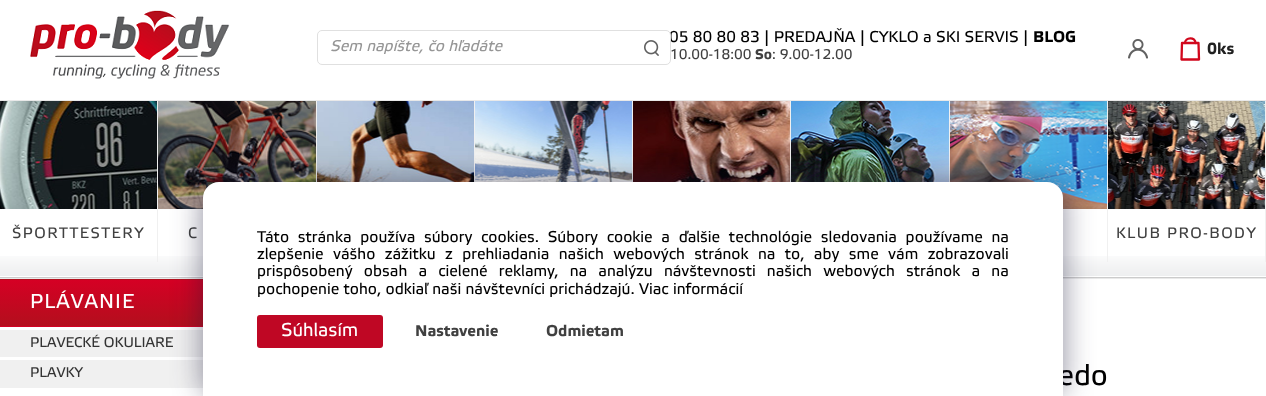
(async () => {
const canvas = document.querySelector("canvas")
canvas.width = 1266
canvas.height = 396
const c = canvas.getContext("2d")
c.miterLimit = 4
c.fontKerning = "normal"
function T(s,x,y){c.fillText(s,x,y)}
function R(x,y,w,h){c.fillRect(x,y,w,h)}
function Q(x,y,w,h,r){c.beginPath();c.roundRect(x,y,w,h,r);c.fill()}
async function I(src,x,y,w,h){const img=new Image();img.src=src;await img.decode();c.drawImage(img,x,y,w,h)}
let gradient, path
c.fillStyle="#fff"
R(0,0,1266,396)
c.font="15.6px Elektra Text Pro"
c.fillStyle="#000"
T("05 80 80 83 | PREDAJŇA | CYKLO a SKI SERVIS |",669,42)
c.fillStyle="#fff"
c.beginPath()
c.roundRect(317.5,30.5,353,34,4.5)
c.fill()
c.strokeStyle="#e0e0e0"
c.stroke()
c.save()
c.beginPath()
c.rect(320,40,333,15)
c.clip()
c.font="italic 15.6px Elektra Text Pro"
c.fillStyle="#969696"
T("Sem napíšte, čo hľadáte",330,51)
c.restore()
await I("1.png",644,40,15,16)
await I("2.png",30,10,200,69)
c.font="bold 15.6px Elektra Text Pro"
c.fillStyle="#000"
T("BLOG",1033,42)
c.font="14px Elektra Text Pro"
c.fillStyle="#404040"
T("10.00-18:00",670,59)
c.font="bold 14px Elektra Text Pro"
T("So",755,59)
c.font="14px Elektra Text Pro"
T(": 9.00-12.00",772,59)
await I("3.png",1128,39,20,20)
path = new Path2D("M1185 43c0-6 10.5-6.5 10.5 0")
c.strokeStyle="#d1071c"
c.lineWidth=2.3
c.lineCap="round"
c.stroke(path)
path = new Path2D("M1182 43h16.5l.5 16.5h-17.5z")
c.lineJoin="round"
c.stroke(path)
c.font="bold 16px Elektra Text Pro"
c.fillStyle="#202020"
T("0ks",1207,54)
await I("4.png",0,256,1266,22)
c.fillStyle="#e9e9e9"
R(0,100,1266,1)
R(0,278,1266,1)
await I("5.png",0,101,157,108)
c.fillStyle="#f0f0f0"
R(157,101,1,161)
c.letterSpacing="1.5px"
c.font="15px Elektra Text Pro"
c.fillStyle="#404040"
T("ŠPORTTESTERY",12,238)
await I("6.png",158,101,158,108)
c.fillStyle="#f0f0f0"
R(316,101,1,81)
c.fillStyle="#404040"
T("C",188,238)
await I("7.png",317,101,157,81)
c.fillStyle="#f0f0f0"
R(474,101,1,81)
await I("8.png",475,101,157,81)
R(632,101,1,81)
await I("9.png",633,101,157,81)
R(790,101,1,81)
await I("10.png",791,101,158,81)
R(949,101,1,81)
await I("11.png",950,101,157,108)
R(1107,101,1,161)
await I("12.png",1108,101,157,108)
R(1265,101,1,161)
c.fillStyle="#404040"
T("KLUB PRO-BODY",1116,238)
gradient = c.createLinearGradient(121,234,121,280)
gradient.addColorStop(0,"#d50024")
gradient.addColorStop(1,"#b30f1d")
c.fillStyle = gradient
R(0,279,203,1)
gradient = c.createLinearGradient(121,280,121,326)
gradient.addColorStop(0,"#d50024")
gradient.addColorStop(1,"#b30f1d")
c.fillStyle = gradient
R(0,280,203,46)
gradient = c.createLinearGradient(121,326,121,372)
gradient.addColorStop(0,"#d50024")
gradient.addColorStop(1,"#b30f1d")
c.fillStyle = gradient
R(0,326,203,1)
c.letterSpacing="1px"
c.font="20px Elektra Text Pro"
c.fillStyle="#fff"
T("PLÁVANIE",30,308)
c.fillStyle="#f0f0f0"
R(0,330,203,27)
c.letterSpacing="0px"
c.font="14px Elektra Text Pro"
c.fillStyle="#333"
T("PLAVECKÉ OKULIARE",30,347)
c.fillStyle="#f0f0f0"
R(0,360,203,28)
c.fillStyle="#333"
T("PLAVKY",30,377)
c.font="29px Elektra Text Pro"
c.fillStyle="#000"
T("edo",1058,385)
c.fillStyle="#1b193980"
c.filter="blur(15px)"
c.beginPath()
c.roundRect(203,182,860,214,16)
c.fill()
c.filter="none"
c.fillStyle="#fff"
c.beginPath()
c.roundRect(203,182,860,214,[16,16,0,0])
c.fill()
c.wordSpacing="4.4px"
c.font="15.6px Elektra Text Pro"
c.fillStyle="#000"
T("Táto stránka používa súbory cookies. Súbory cookie a ďalšie technológie sledovania používame na",257,242)
c.wordSpacing="5.1px"
T("zlepšenie vášho zážitku z prehliadania našich webových stránok na to, aby sme vám zobrazovali",257,259)
c.wordSpacing="6.9px"
T("prispôsobený obsah a cielené reklamy, na analýzu návštevnosti našich webových stránok a na",257,276)
c.wordSpacing="0px"
T("pochopenie toho, odkiaľ naši návštevníci prichádzajú. Viac informácií",257,294)
c.fillStyle="#bf0724"
Q(257,315,126,33,3)
c.font="18.5px Elektra Text Pro"
c.fillStyle="#fff"
T("Súhlasím",281,336)
c.font="bold 15.6px Elektra Text Pro"
c.fillStyle="#404040"
T("Nastavenie",415,336)
T("Odmietam",546,336)
})()
